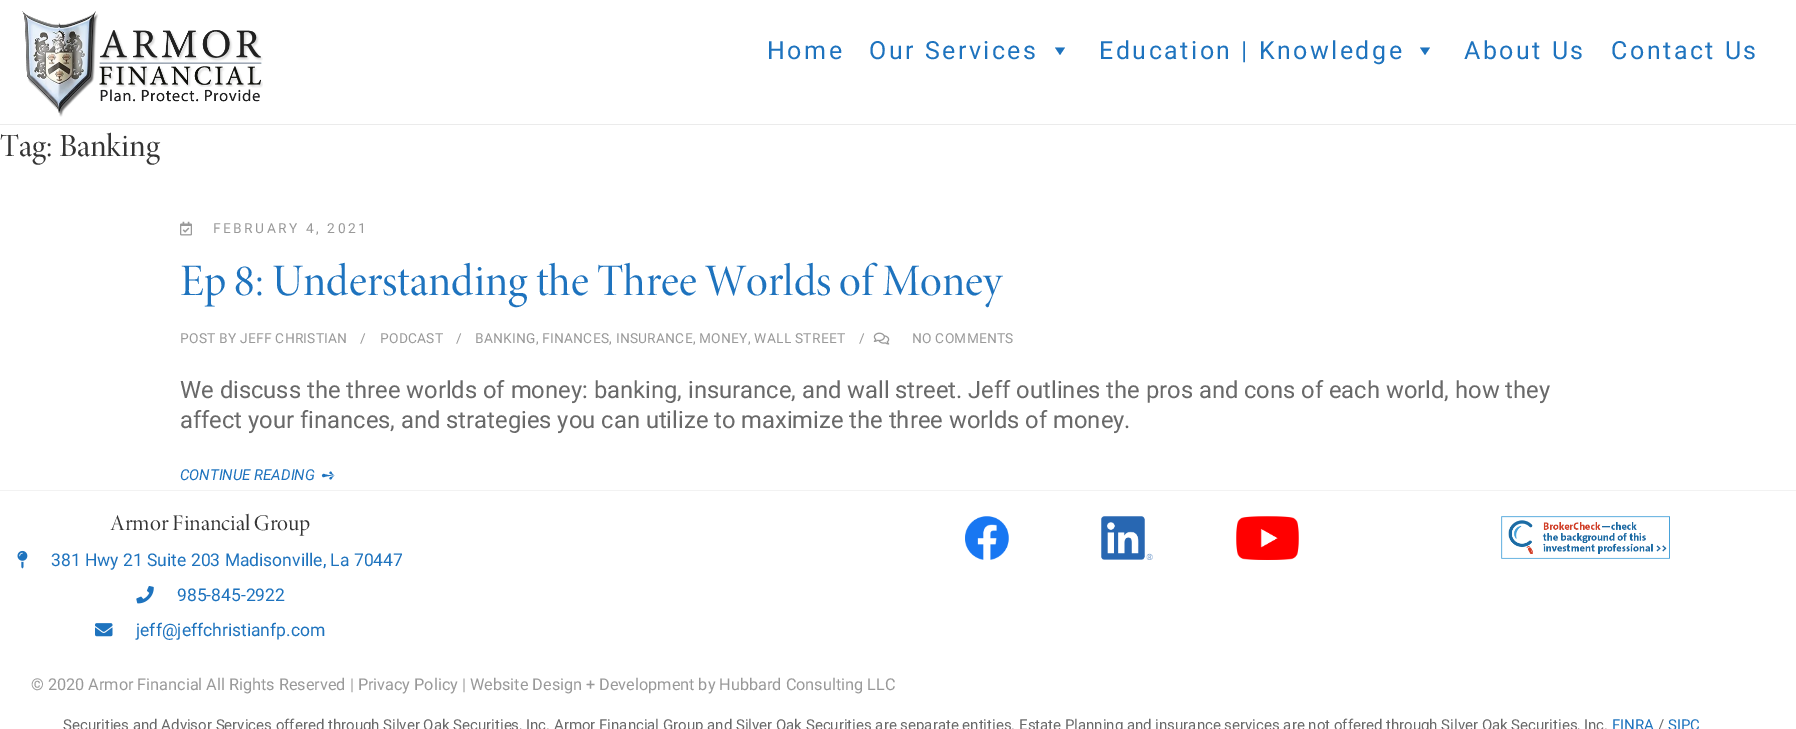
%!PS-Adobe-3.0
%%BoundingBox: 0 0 1796 729
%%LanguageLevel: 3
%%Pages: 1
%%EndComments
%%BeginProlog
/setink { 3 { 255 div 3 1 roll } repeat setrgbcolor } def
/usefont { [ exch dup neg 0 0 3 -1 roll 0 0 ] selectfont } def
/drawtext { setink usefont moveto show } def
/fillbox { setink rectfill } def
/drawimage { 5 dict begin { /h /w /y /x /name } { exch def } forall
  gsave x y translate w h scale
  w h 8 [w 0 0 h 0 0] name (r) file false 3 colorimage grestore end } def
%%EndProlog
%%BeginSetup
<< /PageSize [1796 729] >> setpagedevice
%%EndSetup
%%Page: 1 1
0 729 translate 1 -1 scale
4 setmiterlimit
0 0 1796 729 255 255 255 fillbox
(assets/img1.rgb) 22 11 241 106 drawimage
/Roboto-Regular 25 usefont
30 115 190 setink
767 59 moveto 2.5 0 (Home) ashow
869 59 moveto 2.5 0 (Our Services) ashow
1065 47.5 moveto 1060 55 lineto 1055 47.5 lineto closepath fill
1099 59 moveto 2.5 0 (Education | Knowledge) ashow
1430 47.5 moveto 1425 55 lineto 1420 47.5 lineto closepath fill
1464 59 moveto 2.5 0 (About Us) ashow
1611 59 moveto 2.5 0 (Contact Us) ashow
0 124 1796 1 235 235 235 fillbox
(Tag: Banking) 0 156 /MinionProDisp-Regular 32.5 52 52 52 drawtext
(assets/img2.rgb) 180 221 12 15 drawimage
/Roboto-Regular 13.75 usefont
153 153 153 setink
213 233 moveto 2.5 0 (FEBRUARY 4, 2021) ashow
(Ep 8: Understanding the Three Worlds of Money) 180 295 /MinionProDisp-Regular 45 30 115 190 drawtext
/Roboto-Regular 13.75 usefont
153 153 153 setink
180 343 moveto 0.25 0 (POST BY JEFF CHRISTIAN) ashow
360 343 moveto 0.25 0 (/) ashow
380 343 moveto 0.25 0 (PODCAST) ashow
456 343 moveto 0.25 0 (/) ashow
475 343 moveto 0.25 0 (BANKING, FINANCES, INSURANCE, MONEY, WALL STREET) ashow
859 343 moveto 0.25 0 (/) ashow
(assets/img3.rgb) 873 332 17 13 drawimage
912 343 moveto 0.25 0 (NO COMMENTS) ashow
(We discuss the three worlds of money: banking, insurance, and wall street. Jeff outlines the pros and cons of each world, how they) 180 398 /Roboto-Regular 23.75 105 105 105 drawtext
(affect your finances, and strategies you can utilize to maximize the three worlds of money.) 180 428 /Roboto-Regular 23.75 105 105 105 drawtext
(CONTINUE READING) 180 480 /Roboto-Italic 15 30 115 190 drawtext
(➺) 321 481 /DejaVuSans-Regular 17.5 30 115 190 drawtext
0 490 1796 1 242 242 242 fillbox
(Armor Financial Group) 110 530 /MinionProDisp-Regular 22.5 52 52 52 drawtext
(assets/img4.rgb) 17 550 11 19 drawimage
(381 Hwy 21 Suite 203 Madisonville, La 70447) 51 566 /Roboto-Regular 17.5 30 115 190 drawtext
(assets/img5.rgb) 136 586 18 18 drawimage
(985-845-2922) 177 601 /Roboto-Regular 17.5 30 115 190 drawtext
(assets/img6.rgb) 95 623 18 14 drawimage
(jeff@jeffchristianfp.com) 136 636 /Roboto-Regular 17.5 30 115 190 drawtext
(assets/img7.rgb) 965 516 44 44 drawimage
(assets/img8.rgb) 1101 516 52 44 drawimage
(assets/img9.rgb) 1236 516 63 44 drawimage
(assets/img10.rgb) 1501 516 169 43 drawimage
(© 2020 Armor Financial All Rights Reserved | Privacy Policy | Website Design + Development by Hubbard Consulting LLC) 31 690 /Roboto-Regular 16.25 153 153 153 drawtext
(Securities and Advisor Services offered through Silver Oak Securities, Inc. Armor Financial Group and Silver Oak Securities are separate entities. Estate Planning and insurance services are not offered through Silver Oak Securities, Inc.) 63 730 /Roboto-Regular 15 105 105 105 drawtext
(FINRA) 1612 730 /Roboto-Regular 15 30 115 190 drawtext
(/) 1658 730 /Roboto-Regular 15 105 105 105 drawtext
(SIPC) 1668 730 /Roboto-Regular 15 30 115 190 drawtext
showpage
%%EOF
